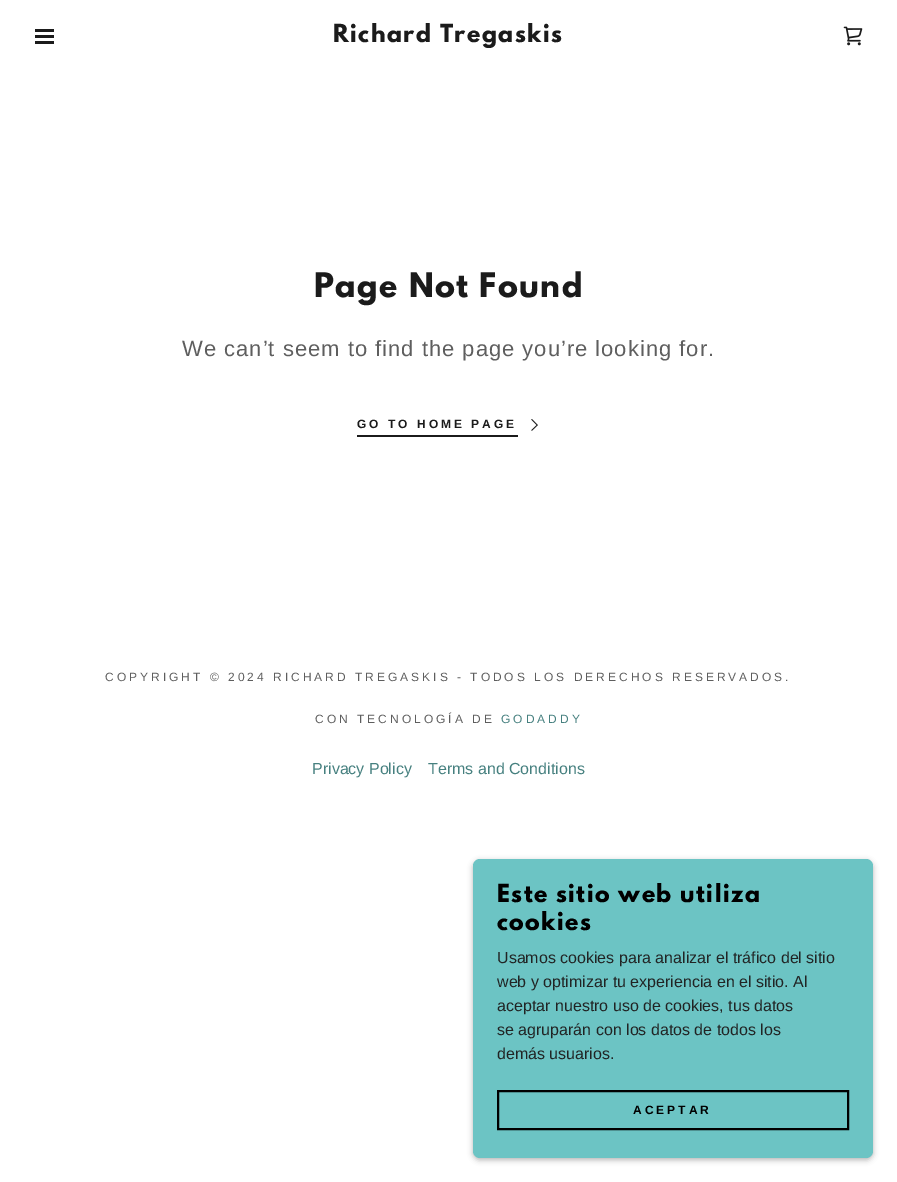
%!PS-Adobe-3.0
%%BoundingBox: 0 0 897 1182
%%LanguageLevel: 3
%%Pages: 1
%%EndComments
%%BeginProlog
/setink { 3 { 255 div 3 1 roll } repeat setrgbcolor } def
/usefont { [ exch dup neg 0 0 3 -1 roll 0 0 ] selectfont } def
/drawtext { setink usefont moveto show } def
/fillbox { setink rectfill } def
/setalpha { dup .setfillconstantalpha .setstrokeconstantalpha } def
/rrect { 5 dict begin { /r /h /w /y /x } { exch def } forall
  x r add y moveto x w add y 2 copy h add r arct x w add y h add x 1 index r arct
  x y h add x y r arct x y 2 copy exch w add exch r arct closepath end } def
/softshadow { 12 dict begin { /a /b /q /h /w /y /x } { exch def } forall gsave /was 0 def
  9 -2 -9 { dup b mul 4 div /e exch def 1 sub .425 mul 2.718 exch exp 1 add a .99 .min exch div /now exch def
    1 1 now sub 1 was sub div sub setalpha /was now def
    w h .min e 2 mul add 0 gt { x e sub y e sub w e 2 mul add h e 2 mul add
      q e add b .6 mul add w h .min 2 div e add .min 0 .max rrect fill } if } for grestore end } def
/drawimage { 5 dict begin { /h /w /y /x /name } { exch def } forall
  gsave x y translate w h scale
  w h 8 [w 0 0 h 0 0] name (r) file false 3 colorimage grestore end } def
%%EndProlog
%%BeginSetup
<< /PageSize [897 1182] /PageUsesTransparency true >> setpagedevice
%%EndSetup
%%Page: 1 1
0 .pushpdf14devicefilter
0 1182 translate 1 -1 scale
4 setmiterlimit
0 0 897 1182 255 255 255 fillbox
35 29 19 3 27 27 27 fillbox
35 35 19 3 27 27 27 fillbox
35 41 19 3 27 27 27 fillbox
/LeagueSpartan-Bold 22 usefont
333 42 moveto 1.5 0 (Richard Tregaskis) ashow
(assets/img1.rgb) 843 26 20 20 drawimage
/LeagueSpartan-Bold 30 usefont
314 297 moveto 1.5 0 (Page Not Found) ashow
/LiberationSans-Regular 22 usefont
94 94 94 setink
182 356 moveto 1 0 (We can’t seem to find the page you’re looking for.) ashow
357 435 161 2 27 27 27 fillbox
/LiberationSans-Bold 12 usefont
357 428 moveto 3 0 (GO TO HOME PAGE) ashow
(assets/img2.rgb) 531 419 7 12 drawimage
/LiberationSans-Regular 12 usefont
94 94 94 setink
105 681 moveto 3 0 (COPYRIGHT © 2024 RICHARD TREGASKIS - TODOS LOS DERECHOS RESERVADOS.) ashow
315 723 moveto 3 0 (CON TECNOLOGÍA DE) ashow
70 128 127 setink
501 723 moveto 3 0 (GODADDY) ashow
(Privacy Policy) 312 774 /LiberationSans-Regular 16 70 128 127 drawtext
(Terms and Conditions) 428 774 /LiberationSans-Regular 16 70 128 127 drawtext
0 0 0 setink
473 861 400 299 7 3 0.3 softshadow
108 196 196 setink
473 859 400 299 7 rrect fill
/LeagueSpartan-Bold 22 usefont
0 0 0 setink
497 902 moveto 1.5 0 (Este sitio web utiliza) ashow
497 930 moveto 1.5 0 (cookies) ashow
(Usamos cookies para analizar el tráfico del sitio) 497 963 /LiberationSans-Regular 16 33 36 36 drawtext
(web y optimizar tu experiencia en el sitio. Al) 497 987 /LiberationSans-Regular 16 33 36 36 drawtext
(aceptar nuestro uso de cookies, tus datos) 497 1011 /LiberationSans-Regular 16 33 36 36 drawtext
(se agruparán con los datos de todos los) 497 1035 /LiberationSans-Regular 16 33 36 36 drawtext
(demás usuarios.) 497 1059 /LiberationSans-Regular 16 33 36 36 drawtext
0 0 0 setink
2 setlinewidth
498 1091 350 38 rectstroke
/LiberationSans-Bold 12 usefont
633 1114 moveto 3 0 (ACEPTAR) ashow
.poppdf14devicefilter showpage
%%EOF
